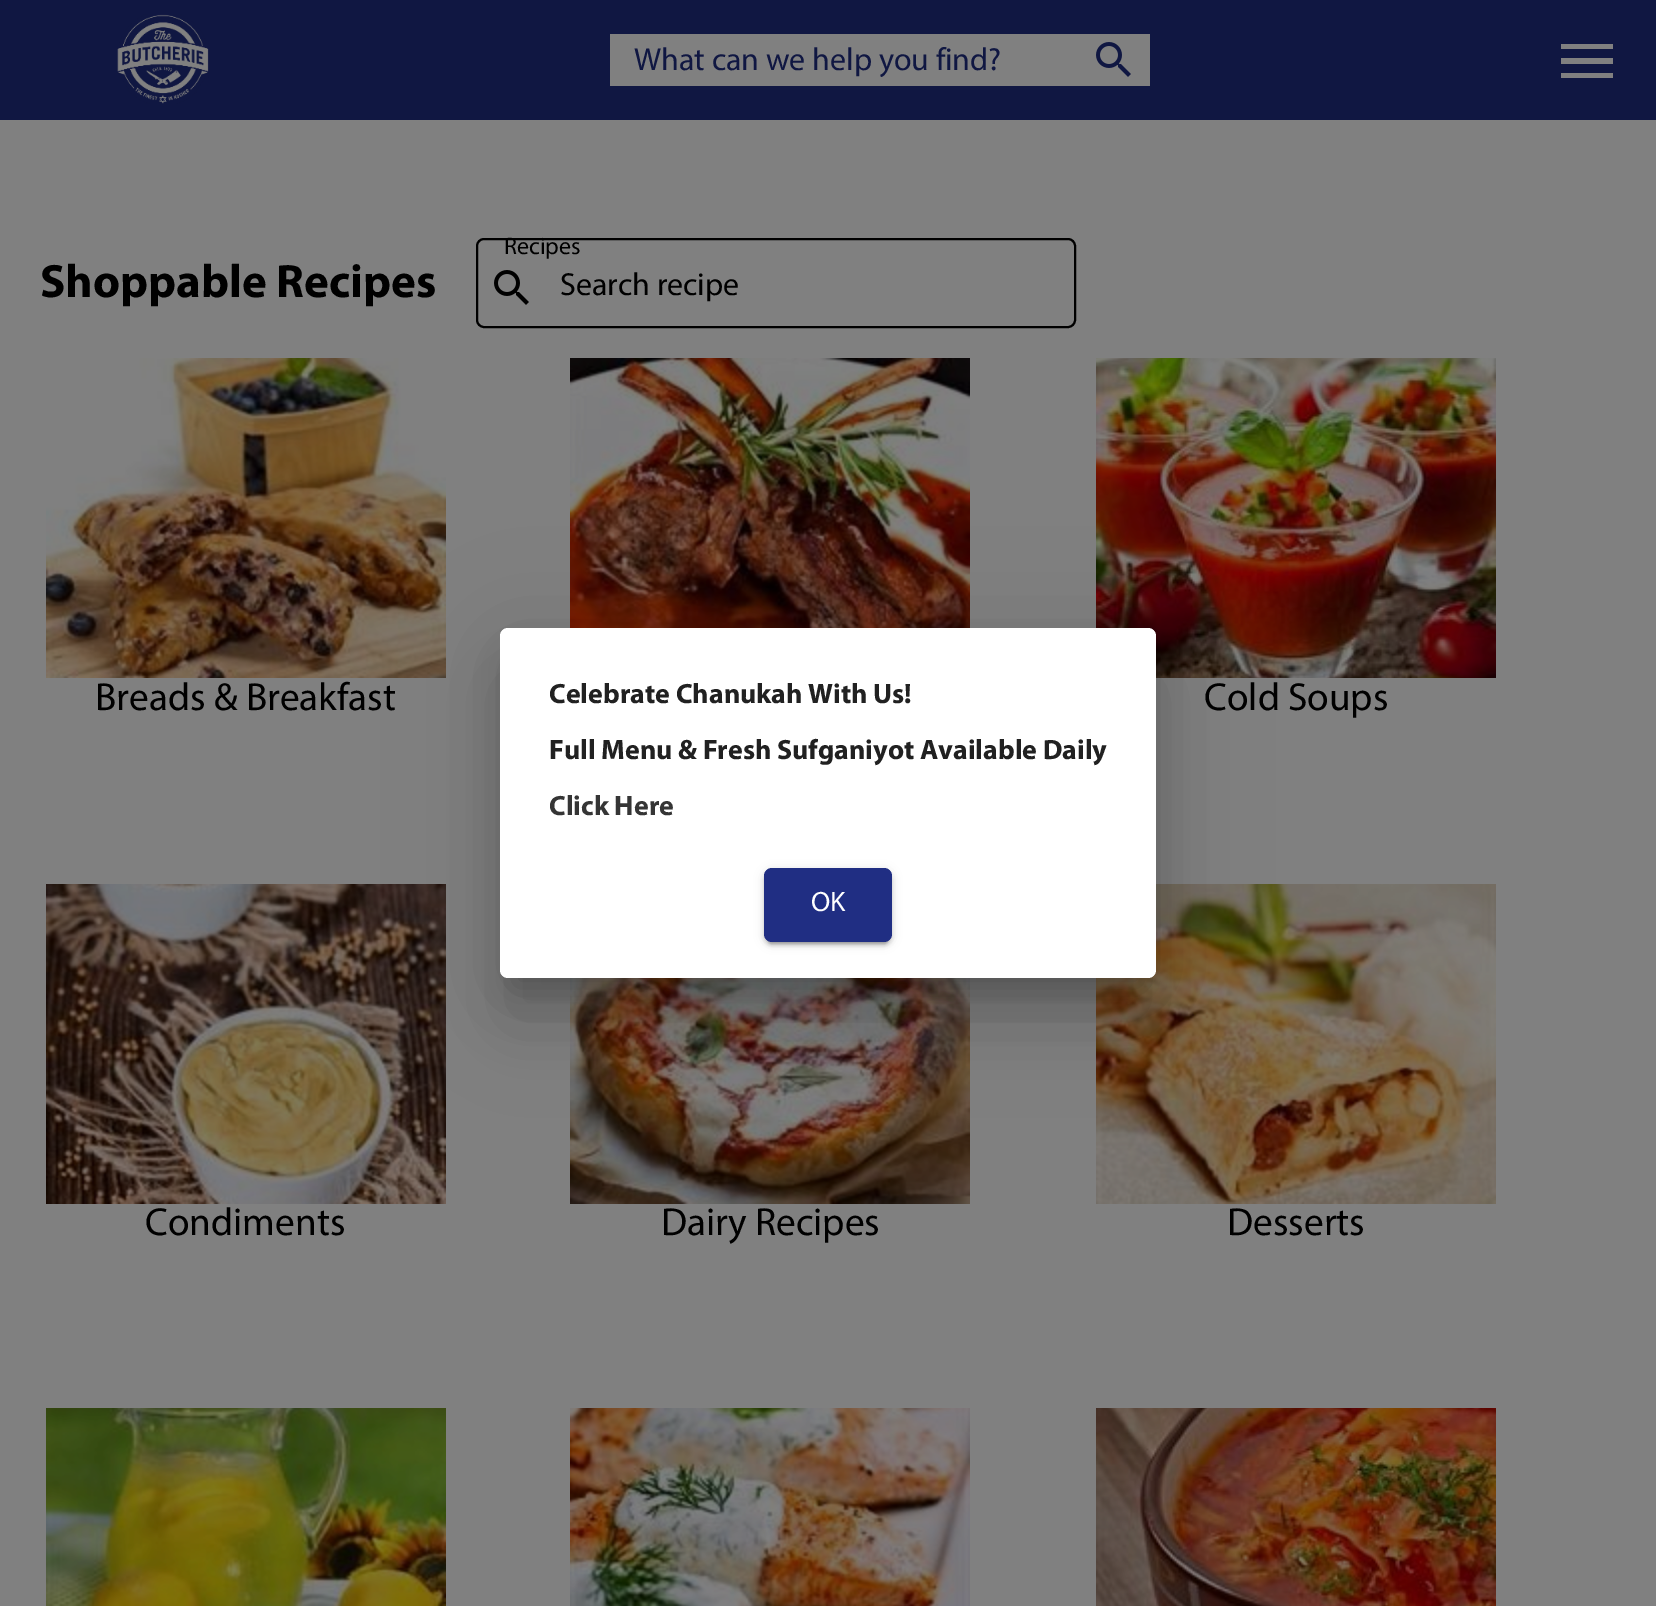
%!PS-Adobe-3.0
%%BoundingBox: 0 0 1656 1606
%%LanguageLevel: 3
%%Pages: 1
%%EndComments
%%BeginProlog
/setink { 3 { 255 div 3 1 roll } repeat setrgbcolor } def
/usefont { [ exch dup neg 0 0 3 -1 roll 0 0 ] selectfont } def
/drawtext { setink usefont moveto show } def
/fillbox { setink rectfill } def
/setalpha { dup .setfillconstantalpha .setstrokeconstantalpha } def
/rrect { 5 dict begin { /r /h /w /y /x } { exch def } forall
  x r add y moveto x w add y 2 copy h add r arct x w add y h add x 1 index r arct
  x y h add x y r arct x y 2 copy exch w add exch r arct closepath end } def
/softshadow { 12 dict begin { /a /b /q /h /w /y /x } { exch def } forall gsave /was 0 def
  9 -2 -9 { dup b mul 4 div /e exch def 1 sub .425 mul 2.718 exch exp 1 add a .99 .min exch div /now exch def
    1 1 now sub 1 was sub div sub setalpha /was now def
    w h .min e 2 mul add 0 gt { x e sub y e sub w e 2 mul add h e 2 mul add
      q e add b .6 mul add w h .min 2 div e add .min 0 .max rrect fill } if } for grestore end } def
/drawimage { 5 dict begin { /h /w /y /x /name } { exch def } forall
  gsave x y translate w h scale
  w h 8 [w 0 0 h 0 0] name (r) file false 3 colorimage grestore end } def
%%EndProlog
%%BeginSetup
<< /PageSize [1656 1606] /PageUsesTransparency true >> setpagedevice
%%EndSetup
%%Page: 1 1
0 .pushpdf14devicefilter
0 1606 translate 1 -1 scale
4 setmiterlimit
0 0 1656 1606 128 128 128 fillbox
0 0 1656 120 16 23 66 fillbox
(assets/img1.rgb) 117 14 92 90 drawimage
610 34 540 52 128 128 128 fillbox
(What can we help you find?) 634 70 /Myriad-Regular 32 16 23 66 drawtext
(assets/img2.rgb) 1096 42 35 35 drawimage
128 128 128 setink
1561 78 moveto 1613 78 lineto 1613 73 lineto 1561 73 lineto closepath 1561 64 moveto 1613 64 lineto 1613 58 lineto 1561 58 lineto closepath 1561 44 moveto 1561 49 lineto 1613 49 lineto 1613 44 lineto closepath fill
(Shoppable Recipes) 40 297 /Myriad-Bold 47 0 0 0 drawtext
(assets/img3.rgb) 494 270 35 35 drawimage
2 setlinewidth
477 239 598 88 7 rrect stroke
(Recipes) 504 254 /Myriad-Regular 24 0 0 0 drawtext
(Search recipe) 560 295 /Myriad-Regular 32 0 0 0 drawtext
(assets/img4.rgb) 570 358 400 270 drawimage
(assets/img5.rgb) 46 358 400 320 drawimage
(Breads & Breakfast) 95 710 /Myriad-Regular 39.25 0 0 0 drawtext
(assets/img6.rgb) 1096 358 400 320 drawimage
(Cold Soups) 1204 710 /Myriad-Regular 39.25 0 0 0 drawtext
(assets/img7.rgb) 46 884 400 320 drawimage
(Condiments) 145 1235 /Myriad-Regular 39.25 0 0 0 drawtext
(assets/img8.rgb) 570 978 400 226 drawimage
(Dairy Recipes) 661 1235 /Myriad-Regular 39.25 0 0 0 drawtext
(assets/img9.rgb) 1096 884 400 320 drawimage
(Desserts) 1227 1235 /Myriad-Regular 39.25 0 0 0 drawtext
(assets/img10.rgb) 46 1408 400 198 drawimage
(assets/img11.rgb) 570 1408 400 198 drawimage
(assets/img12.rgb) 1096 1408 400 198 drawimage
484 630 688 382 24 46 0.12 softshadow
494 670 668 362 14 38 0.14 softshadow
514 664 628 322 0 15 0.2 softshadow
255 255 255 setink
500 628 656 350 8 rrect fill
(Celebrate Chanukah With Us!) 549 703 /Myriad-Bold 28 33 33 33 drawtext
(Full Menu & Fresh Sufganiyot Available Daily) 549 759 /Myriad-Bold 28 33 33 33 drawtext
(Click Here) 549 815 /Myriad-Bold 28 53 53 53 drawtext
0 0 0 setink
764 870 128 74 8 5 0.12 softshadow
764 872 128 74 8 2 0.14 softshadow
768 878 120 66 4 1 0.2 softshadow
32 46 131 setink
764 868 128 74 8 rrect fill
(OK) 811 911 /Myriad-Regular 28 255 255 255 drawtext
.poppdf14devicefilter showpage
%%EOF
